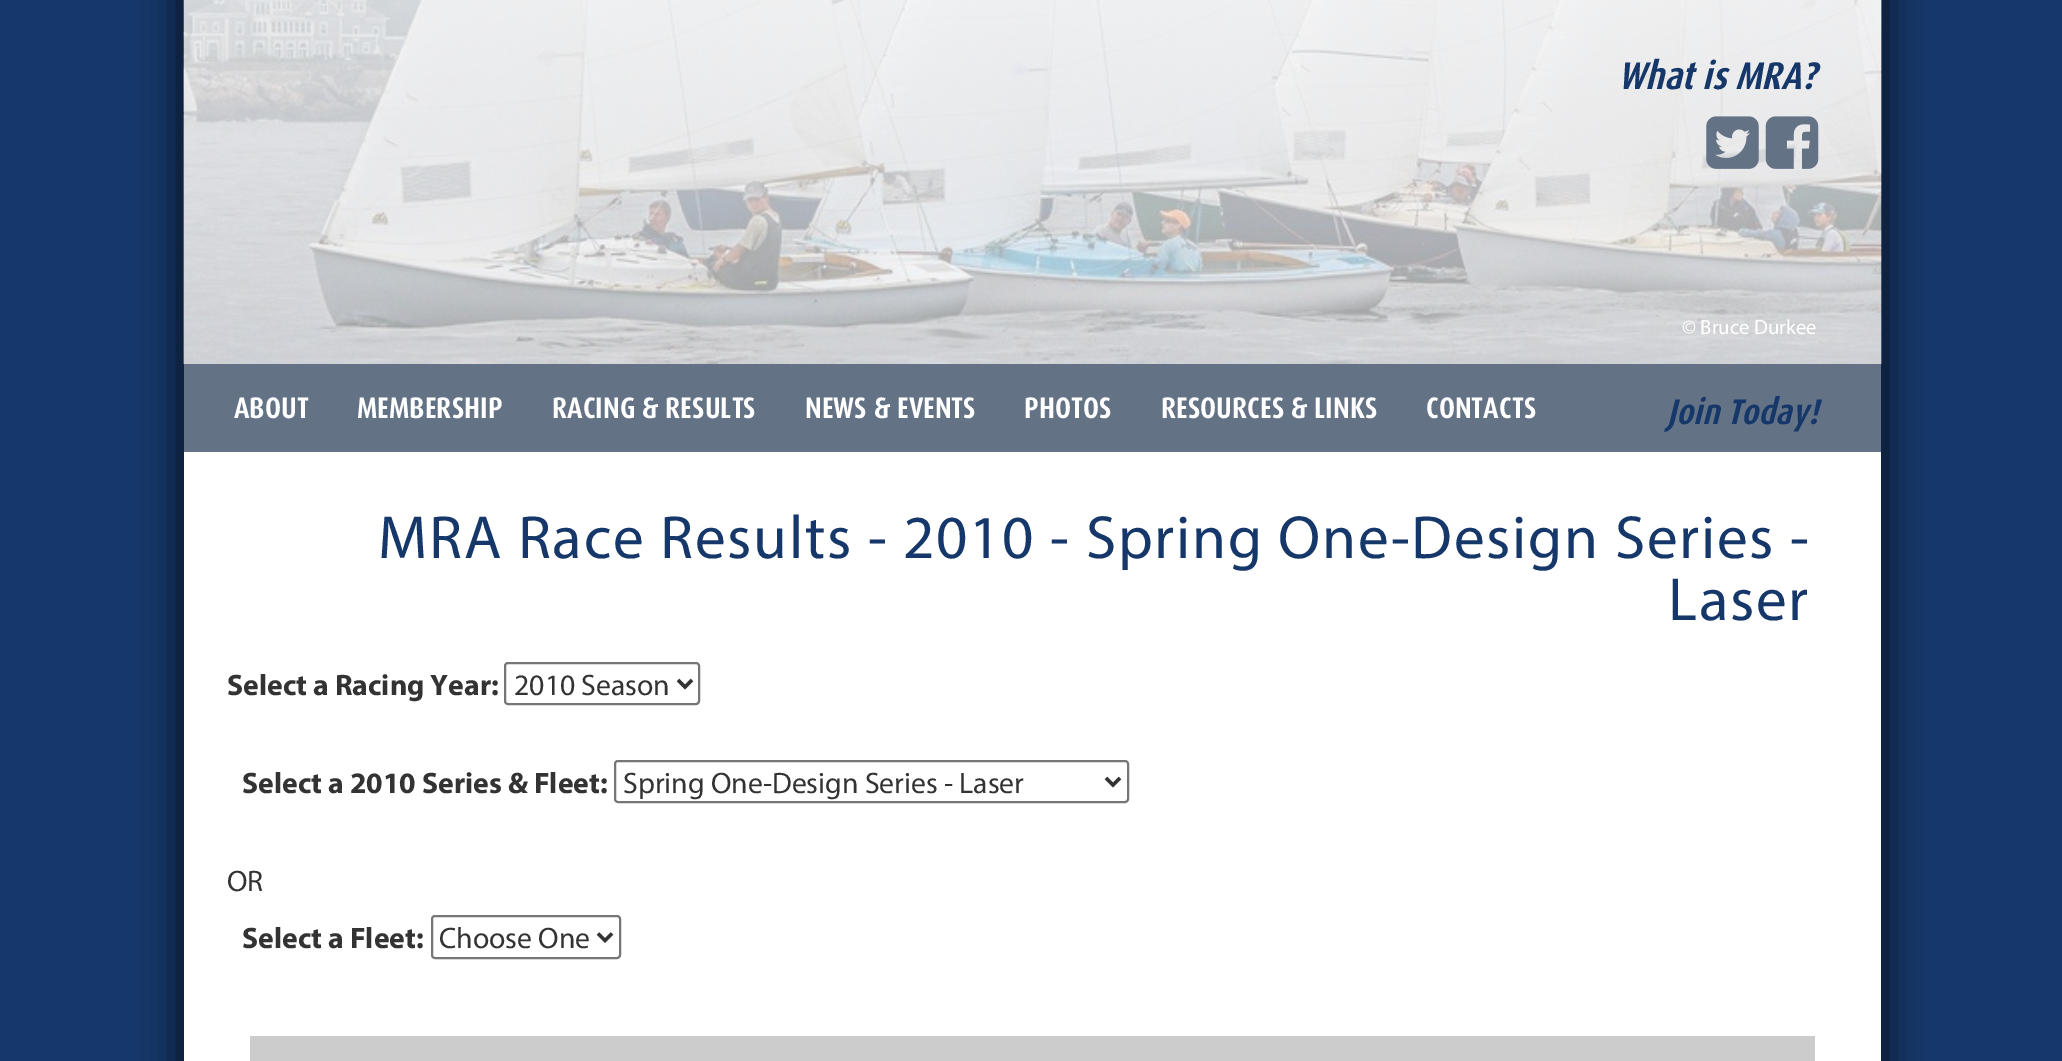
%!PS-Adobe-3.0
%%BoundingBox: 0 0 2062 1061
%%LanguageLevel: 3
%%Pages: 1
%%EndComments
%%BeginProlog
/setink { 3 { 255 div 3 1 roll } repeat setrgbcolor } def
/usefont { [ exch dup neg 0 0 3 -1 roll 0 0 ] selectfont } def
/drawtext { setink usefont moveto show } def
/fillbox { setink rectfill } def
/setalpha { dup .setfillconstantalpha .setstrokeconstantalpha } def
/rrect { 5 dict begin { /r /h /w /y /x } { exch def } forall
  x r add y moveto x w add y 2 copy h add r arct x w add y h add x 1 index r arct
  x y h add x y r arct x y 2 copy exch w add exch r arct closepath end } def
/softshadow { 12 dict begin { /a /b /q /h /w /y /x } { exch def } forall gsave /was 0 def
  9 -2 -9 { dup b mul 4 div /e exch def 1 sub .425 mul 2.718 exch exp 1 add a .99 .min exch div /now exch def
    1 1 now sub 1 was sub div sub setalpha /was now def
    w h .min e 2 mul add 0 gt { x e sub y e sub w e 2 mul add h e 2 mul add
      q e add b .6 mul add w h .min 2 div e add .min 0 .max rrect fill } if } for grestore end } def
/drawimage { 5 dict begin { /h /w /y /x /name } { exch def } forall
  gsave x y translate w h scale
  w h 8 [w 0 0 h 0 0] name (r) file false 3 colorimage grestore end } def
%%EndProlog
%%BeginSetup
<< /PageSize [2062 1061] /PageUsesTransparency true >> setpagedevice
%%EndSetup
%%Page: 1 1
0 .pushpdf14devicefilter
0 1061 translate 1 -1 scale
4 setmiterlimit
0 0 2062 1061 21 55 105 fillbox
0 0 0 setink
180 -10 1705 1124 0 17.5 0.75 softshadow
184 452 1697 609 255 255 255 fillbox
(assets/img1.rgb) 183 0 1699 364 drawimage
(What is MRA?) 1618 89 /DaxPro-BoldItalic 38.5 21 55 105 drawtext
(assets/img2.rgb) 1706 116 53 53 drawimage
(assets/img3.rgb) 1765 116 54 53 drawimage
(© Bruce Durkee) 1682 334 /Myriad-Regular 20.75 255 255 255 drawtext
184 364 1697 88 100 114 134 fillbox
(ABOUT) 234 418 /DaxPro-Bold 29.75 255 255 255 drawtext
(MEMBERSHIP) 357 418 /DaxPro-Bold 29.75 255 255 255 drawtext
(RACING & RESULTS) 552 418 /DaxPro-Bold 29.75 255 255 255 drawtext
(NEWS & EVENTS) 805 418 /DaxPro-Bold 29.75 255 255 255 drawtext
(PHOTOS) 1024 418 /DaxPro-Bold 29.75 255 255 255 drawtext
(RESOURCES & LINKS) 1161 418 /DaxPro-Bold 29.75 255 255 255 drawtext
(CONTACTS) 1426 418 /DaxPro-Bold 29.75 255 255 255 drawtext
(Join Today!) 1667 424 /DaxPro-BoldItalic 35.5 21 55 105 drawtext
/Myriad-Regular 61.25 usefont
378 558 moveto 1.75 0 (MRA Race Results - 2010 - Spring One-Design Series -) ashow
1668 620 moveto 1.75 0 (Laser) ashow
(Select a Racing Year:) 227 695 /Myriad-Bold 29.75 51 51 51 drawtext
118 118 118 setink
2 setlinewidth
505 663 194 41 3 rrect stroke
51 51 51 setink
3.5 setlinewidth
678 680 moveto 685 687 lineto 692 680 lineto stroke
(2010 Season) 514 695 /Myriad-Regular 29.75 51 51 51 drawtext
(Select a 2010 Series & Fleet:) 242 793 /Myriad-Bold 29.75 51 51 51 drawtext
118 118 118 setink
2 setlinewidth
615 761 513 41 3 rrect stroke
51 51 51 setink
3.5 setlinewidth
1106 778 moveto 1113 785 lineto 1120 778 lineto stroke
(Spring One-Design Series - Laser) 623 793 /Myriad-Regular 29.75 51 51 51 drawtext
(OR) 227 891 /Myriad-Regular 29.75 51 51 51 drawtext
(Select a Fleet:) 242 948 /Myriad-Bold 29.75 51 51 51 drawtext
118 118 118 setink
2 setlinewidth
432 916 188 42 3 rrect stroke
51 51 51 setink
3.5 setlinewidth
598 933.5 moveto 605 940.5 lineto 612 933.5 lineto stroke
(Choose One) 439 948 /Myriad-Regular 29.75 51 51 51 drawtext
250 1036 1565 25 204 204 204 fillbox
.poppdf14devicefilter showpage
%%EOF
